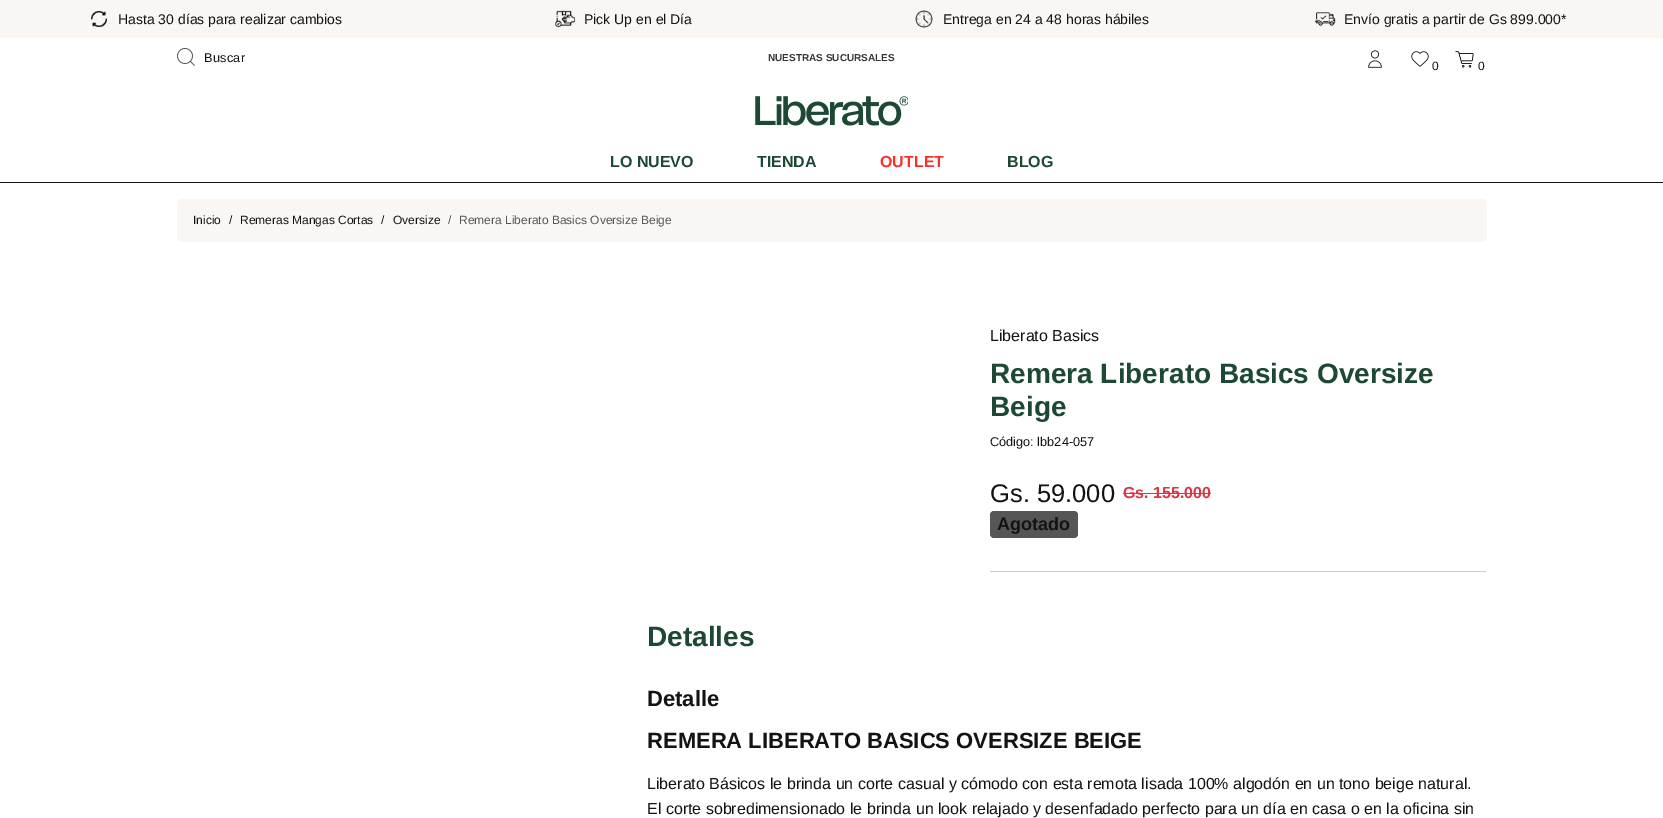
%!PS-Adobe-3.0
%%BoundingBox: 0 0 1663 818
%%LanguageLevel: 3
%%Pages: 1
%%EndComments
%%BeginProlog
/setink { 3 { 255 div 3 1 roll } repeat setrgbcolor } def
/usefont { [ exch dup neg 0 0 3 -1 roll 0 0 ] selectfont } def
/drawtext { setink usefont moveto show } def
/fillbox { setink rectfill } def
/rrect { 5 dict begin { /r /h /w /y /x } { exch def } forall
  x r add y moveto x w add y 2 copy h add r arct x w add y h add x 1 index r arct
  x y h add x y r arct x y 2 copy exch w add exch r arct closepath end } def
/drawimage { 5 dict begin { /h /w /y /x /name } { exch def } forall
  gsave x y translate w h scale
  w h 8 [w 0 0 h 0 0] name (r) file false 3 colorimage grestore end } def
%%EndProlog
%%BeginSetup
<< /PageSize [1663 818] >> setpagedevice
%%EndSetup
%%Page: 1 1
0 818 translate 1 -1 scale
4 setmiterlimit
0 0 1663 818 255 255 255 fillbox
0 182 1663 1 19 19 19 fillbox
0 0 1663 38 249 246 243 fillbox
(assets/img1.rgb) 91 11 16 16 drawimage
(Hasta 30 días para realizar cambios) 118 24 /LiberationSans-Regular 14 19 19 19 drawtext
(assets/img2.rgb) 555 10 21 18 drawimage
(Pick Up en el Día) 584 24 /LiberationSans-Regular 14 19 19 19 drawtext
(assets/img3.rgb) 915 10 18 18 drawimage
(Entrega en 24 a 48 horas hábiles) 943 24 /LiberationSans-Regular 14 19 19 19 drawtext
(assets/img4.rgb) 1314 12 22 14 drawimage
(Envío gratis a partir de Gs 899.000*) 1344 24 /LiberationSans-Regular 14 19 19 19 drawtext
(assets/img5.rgb) 177 48 18 18 drawimage
/LiberationSans-Regular 12.75 usefont
204 62 moveto 0.25 0 (Buscar) ashow
(NUESTRAS SUCURSALES) 768 61 /LiberationSans-Bold 10 54 54 54 drawtext
(assets/img6.rgb) 1368 50 14 18 drawimage
(assets/img7.rgb) 1411 51 18 16 drawimage
(0) 1432 70 /LiberationSans-Regular 12 19 19 19 drawtext
(assets/img8.rgb) 1455 51 19 17 drawimage
(0) 1478 70 /LiberationSans-Regular 12 19 19 19 drawtext
(assets/img9.rgb) 755 96 153 30 drawimage
(LO NUEVO) 610 167 /LiberationSans-Bold 16 28 72 52 drawtext
(TIENDA) 757 167 /LiberationSans-Bold 16 28 72 52 drawtext
(OUTLET) 880 167 /LiberationSans-Bold 16 255 44 44 drawtext
(BLOG) 1007 167 /LiberationSans-Bold 16 28 72 52 drawtext
249 246 243 setink
177 199 1310 43 4 rrect fill
(Inicio) 193 224 /LiberationSans-Regular 12 19 19 19 drawtext
(/) 229 224 /LiberationSans-Regular 12 19 19 19 drawtext
(Remeras Mangas Cortas) 240 224 /LiberationSans-Regular 12 19 19 19 drawtext
(/) 381 224 /LiberationSans-Regular 12 19 19 19 drawtext
(Oversize) 393 224 /LiberationSans-Regular 12 19 19 19 drawtext
(/) 448 224 /LiberationSans-Regular 12 86 86 86 drawtext
(Remera Liberato Basics Oversize Beige) 459 224 /LiberationSans-Regular 12 86 86 86 drawtext
990 571 496 1 204 204 204 fillbox
(Liberato Basics) 990 341 /LiberationSans-Regular 16 19 19 19 drawtext
(Remera Liberato Basics Oversize) 990 383 /LiberationSans-Bold 28 28 72 52 drawtext
(Beige) 990 416 /LiberationSans-Bold 28 28 72 52 drawtext
(Código: lbb24-057) 990 446 /LiberationSans-Regular 12.75 19 19 19 drawtext
(Gs. 59.000) 990 502 /LiberationSans-Regular 25.5 19 19 19 drawtext
(Gs. 155.000) 1123 498 /LiberationSans-Bold 16 220 53 69 drawtext
1123 493 88 1 220 53 69 fillbox
86 86 86 setink
990 511 88 27 4 rrect fill
(Agotado) 997 530 /LiberationSans-Bold 18 19 19 19 drawtext
(Detalles) 647 646 /LiberationSans-Bold 28 28 72 52 drawtext
(Detalle) 647 706 /LiberationSans-Bold 22 19 19 19 drawtext
(REMERA LIBERATO BASICS OVERSIZE BEIGE) 647 748 /LiberationSans-Bold 22 19 19 19 drawtext
(Liberato Básicos le brinda un corte casual y cómodo con esta remota lisada 100% algodón en un tono beige natural.) 647 789 /LiberationSans-Regular 16 19 19 19 drawtext
(El corte sobredimensionado le brinda un look relajado y desenfadado perfecto para un día en casa o en la oficina sin) 647 814 /LiberationSans-Regular 16 19 19 19 drawtext
showpage
%%EOF
